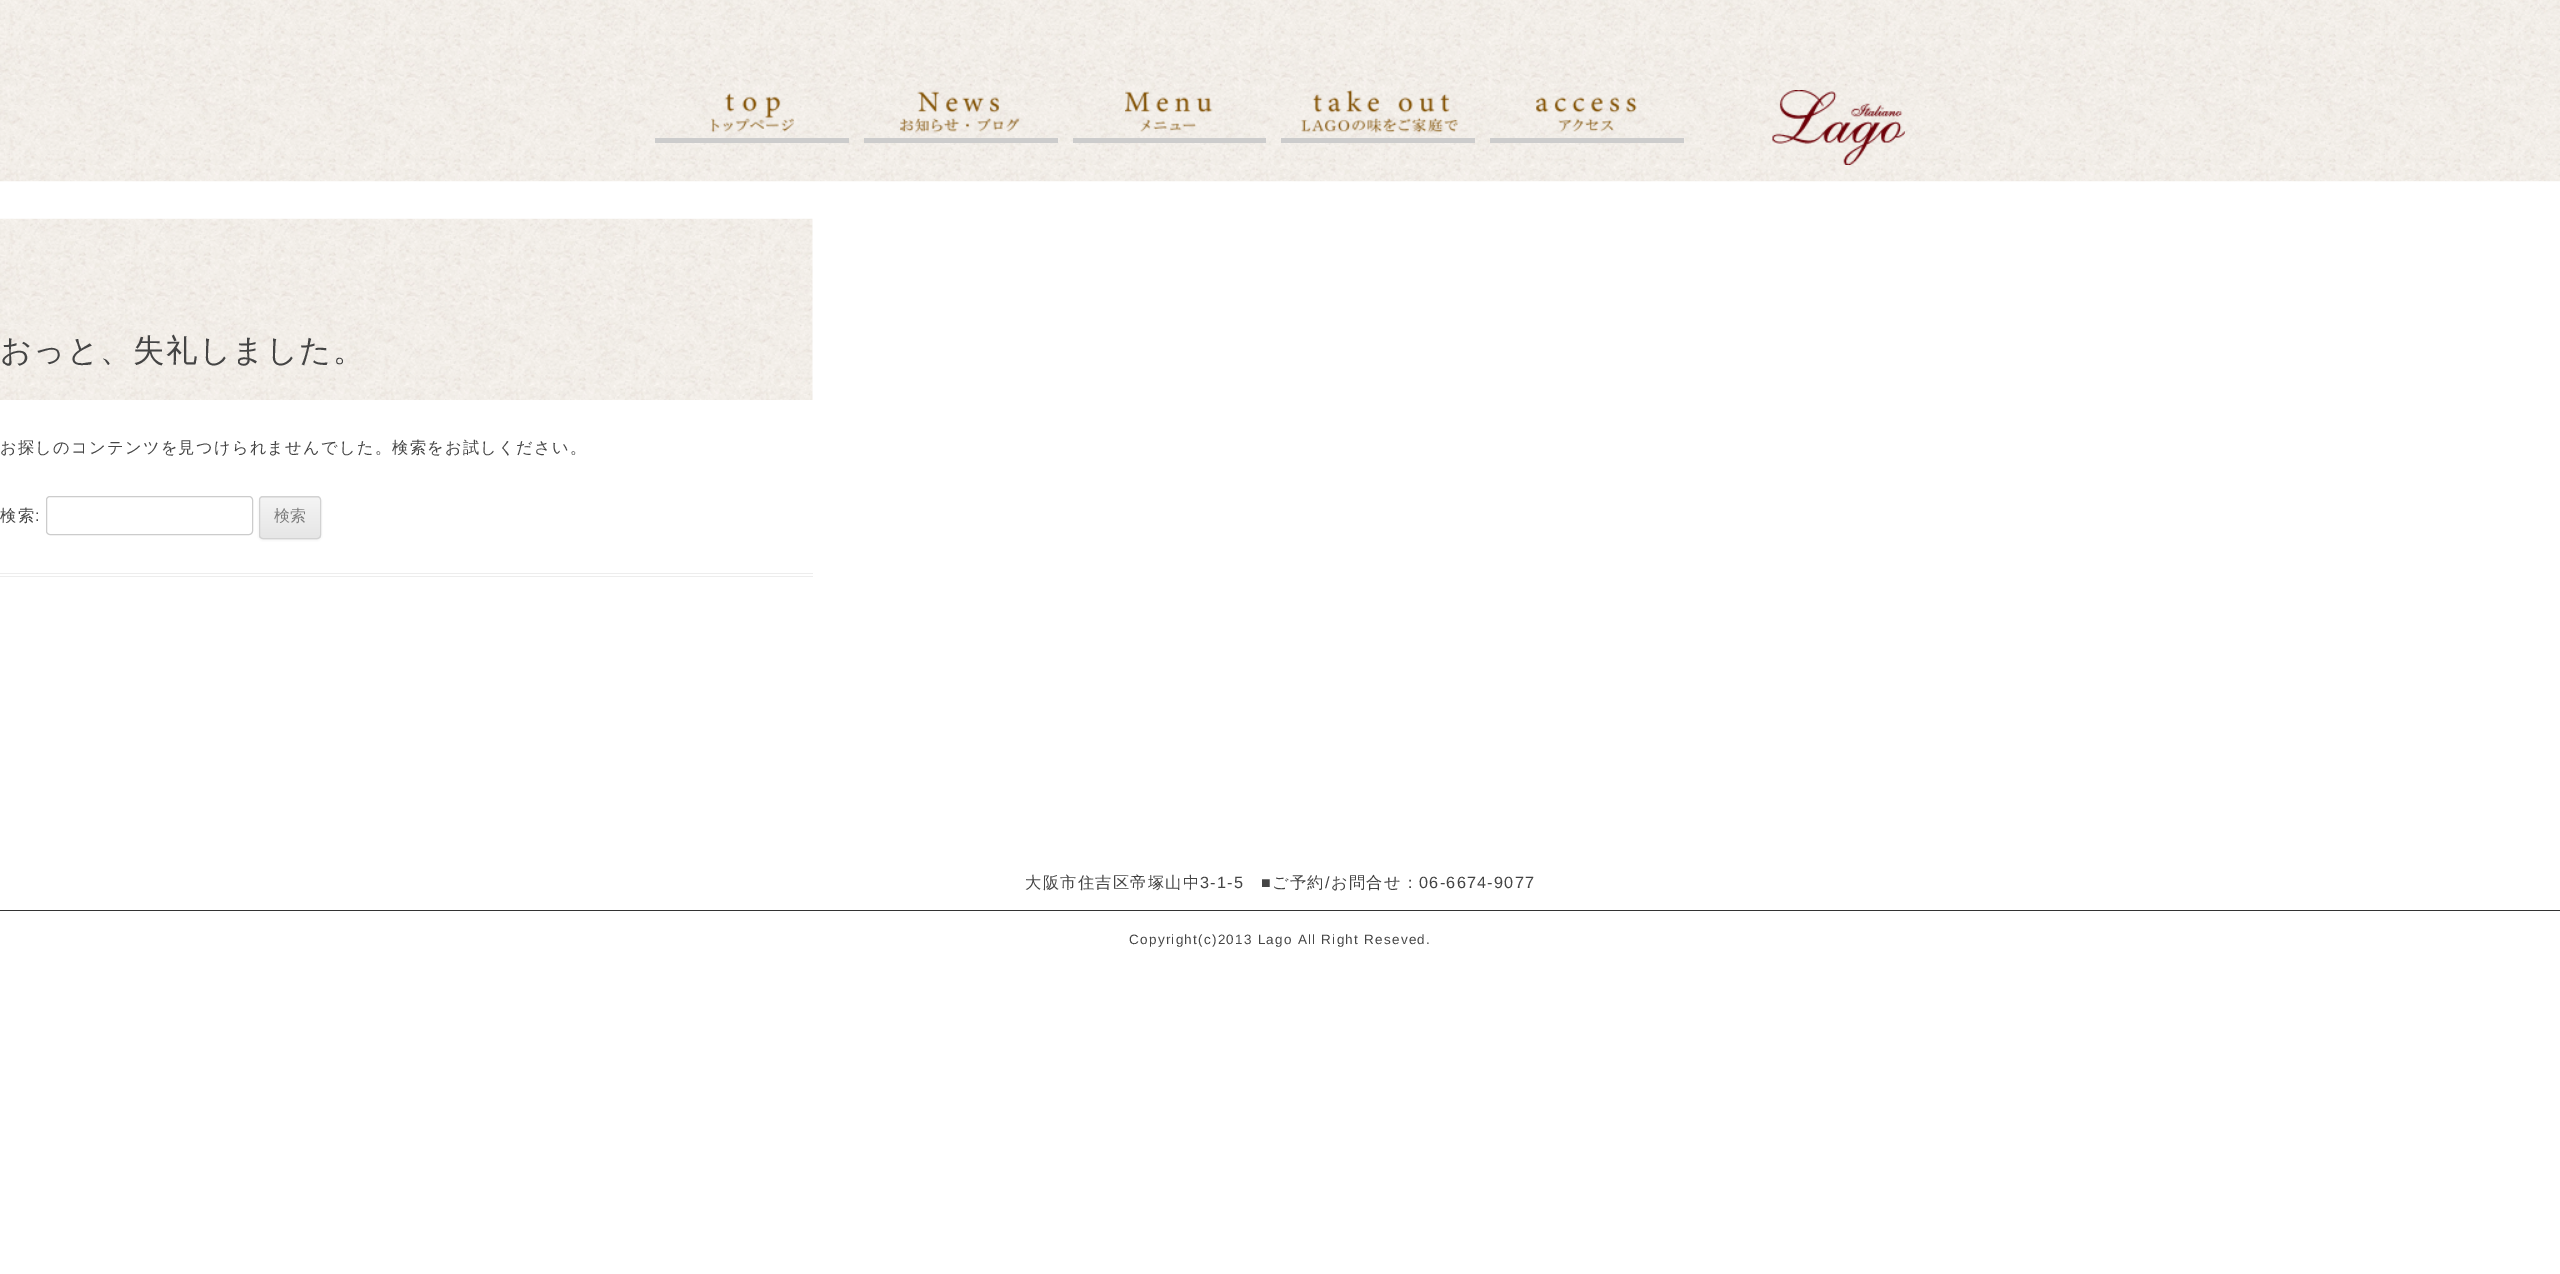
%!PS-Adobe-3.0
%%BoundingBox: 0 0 2560 1274
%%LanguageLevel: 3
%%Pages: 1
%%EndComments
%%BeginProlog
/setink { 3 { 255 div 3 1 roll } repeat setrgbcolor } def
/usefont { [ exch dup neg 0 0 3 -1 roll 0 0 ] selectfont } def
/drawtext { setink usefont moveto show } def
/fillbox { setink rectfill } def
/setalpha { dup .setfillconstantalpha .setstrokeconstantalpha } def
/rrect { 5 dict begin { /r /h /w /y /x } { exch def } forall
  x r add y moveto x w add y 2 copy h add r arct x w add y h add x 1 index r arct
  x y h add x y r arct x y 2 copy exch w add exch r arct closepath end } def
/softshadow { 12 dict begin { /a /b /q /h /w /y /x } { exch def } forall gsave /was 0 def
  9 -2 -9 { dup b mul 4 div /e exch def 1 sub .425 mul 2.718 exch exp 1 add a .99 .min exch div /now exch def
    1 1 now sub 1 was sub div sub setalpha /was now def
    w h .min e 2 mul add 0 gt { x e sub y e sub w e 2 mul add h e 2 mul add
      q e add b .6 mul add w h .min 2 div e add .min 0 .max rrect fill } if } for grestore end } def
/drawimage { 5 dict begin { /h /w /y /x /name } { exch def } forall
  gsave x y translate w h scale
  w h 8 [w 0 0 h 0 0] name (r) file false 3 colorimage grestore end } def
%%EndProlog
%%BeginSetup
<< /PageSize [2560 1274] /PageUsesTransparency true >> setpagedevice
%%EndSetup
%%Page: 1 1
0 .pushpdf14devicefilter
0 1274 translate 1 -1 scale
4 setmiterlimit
0 0 2560 1274 255 255 255 fillbox
(assets/img1.rgb) 0 0 2560 182 drawimage
(assets/img2.rgb) 711 93 83 40 drawimage
655 138 194 5 204 204 204 fillbox
(assets/img3.rgb) 900 91 120 42 drawimage
864 138 194 5 204 204 204 fillbox
(assets/img4.rgb) 1125 91 88 41 drawimage
1073 138 193 5 204 204 204 fillbox
(assets/img5.rgb) 1301 90 157 43 drawimage
1281 138 194 5 204 204 204 fillbox
(assets/img6.rgb) 1536 97 101 35 drawimage
1490 138 194 5 204 204 204 fillbox
(assets/img7.rgb) 1772 90 133 75 drawimage
0 573 813 1 237 237 237 fillbox
0 576 813 1 237 237 237 fillbox
(assets/img8.rgb) 0 218 813 182 drawimage
/WenQuanYiZenHei-Medium 31.5 usefont
68 68 68 setink
0 361 moveto 1.25 0 (おっと、失礼しました。) ashow
/WenQuanYiZenHei-Medium 16.25 usefont
0 453 moveto 1.25 0 (お探しのコンテンツを見つけられませんでした。検索をお試しください。) ashow
0 521 moveto 1.25 0 (検索) ashow
/LiberationSans-Regular 16.25 usefont
35 521 moveto 1.25 0 (:) ashow
204 204 204 setink
46.5 496.5 206 38 3.5 rrect stroke
64 64 64 setink
259 498 62 42 4 1 0.1 softshadow
230 230 230 setink
259 496 62 43 4 rrect fill
gsave
259 496 62 43 4 rrect clip newpath
gsave 259 498 moveto 321 498 lineto 321 538 lineto 259 538 lineto closepath clip newpath
<< /ShadingType 2 /ColorSpace /DeviceRGB /Coords [290 498 290 538] /Extend [true true] /Function << /FunctionType 2 /Domain [0 1] /C0 [0.957 0.957 0.957] /C1 [0.902 0.902 0.902] /N 1 >> >> shfill grestore
grestore
210 210 210 setink
259.5 496.5 61 42 3.5 rrect stroke
(検索) 274 521 /WenQuanYiZenHei-Medium 16 124 124 124 drawtext
0 910 2560 1 51 51 51 fillbox
/WenQuanYiZenHei-Medium 16.25 usefont
68 68 68 setink
1025 888 moveto 1.25 0 (大阪市住吉区帝塚山中) ashow
/LiberationSans-Regular 16.25 usefont
1200 888 moveto 1.25 0 (3-1-5) ashow
1261 888 moveto 1.25 0 (■) ashow
/WenQuanYiZenHei-Medium 16.25 usefont
1272 888 moveto 1.25 0 (ご予約) ashow
/LiberationSans-Regular 16.25 usefont
1325 888 moveto 1.25 0 (/) ashow
/WenQuanYiZenHei-Medium 16.25 usefont
1331 888 moveto 1.25 0 (お問合せ：) ashow
/LiberationSans-Regular 16.25 usefont
1419 888 moveto 1.25 0 (06-6674-9077) ashow
/LiberationSans-Regular 13.5 usefont
1129 944 moveto 1.25 0 (Copyright\(c\)2013 Lago All Right Reseved.) ashow
.poppdf14devicefilter showpage
%%EOF
